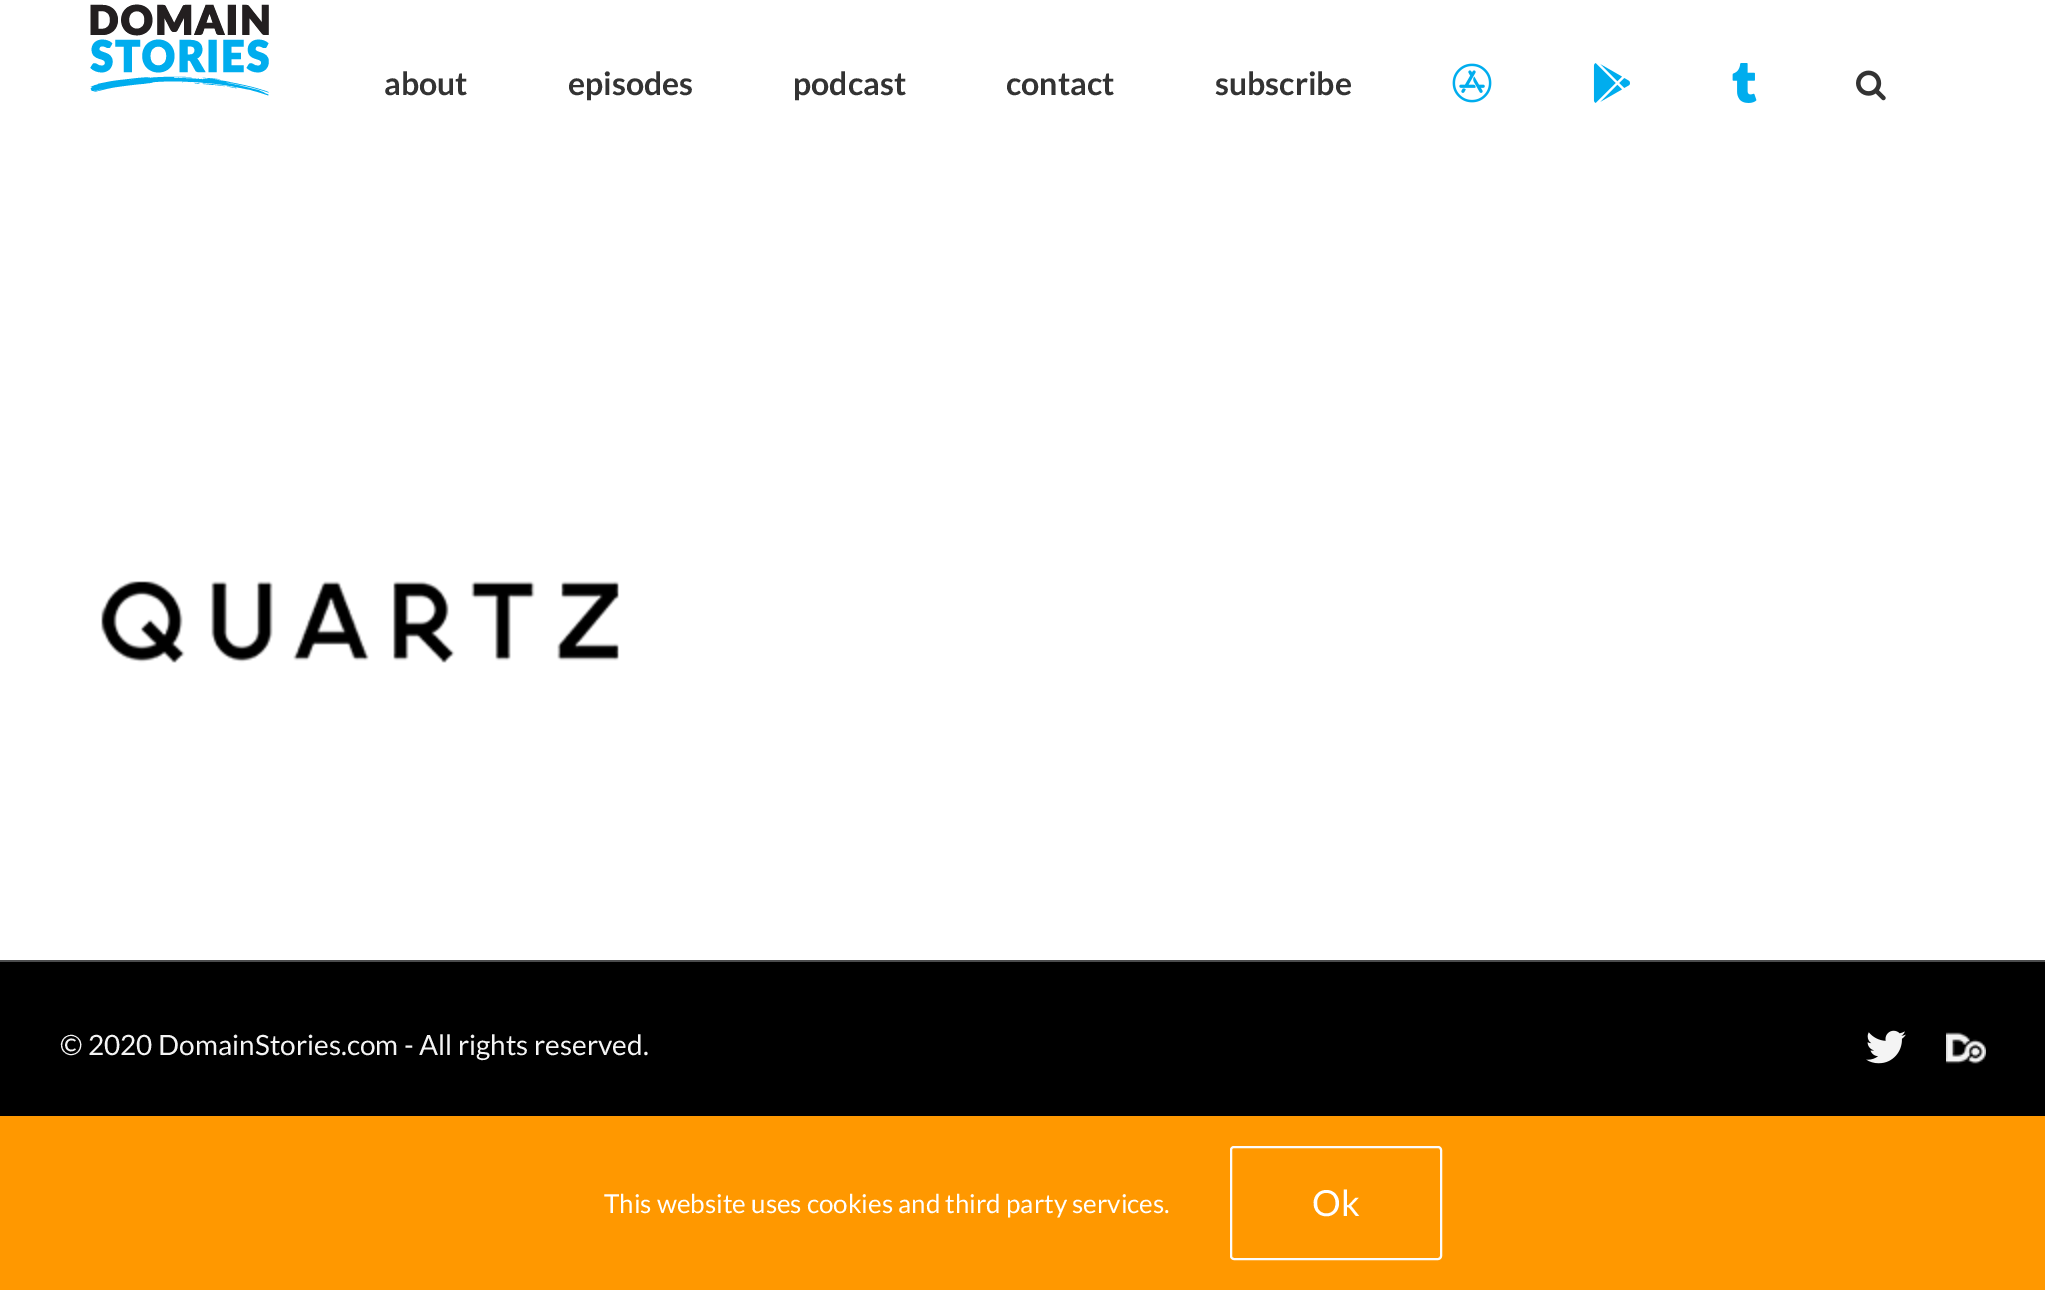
%!PS-Adobe-3.0
%%BoundingBox: 0 0 2045 1290
%%LanguageLevel: 3
%%Pages: 1
%%EndComments
%%BeginProlog
/setink { 3 { 255 div 3 1 roll } repeat setrgbcolor } def
/usefont { [ exch dup neg 0 0 3 -1 roll 0 0 ] selectfont } def
/drawtext { setink usefont moveto show } def
/fillbox { setink rectfill } def
/rrect { 5 dict begin { /r /h /w /y /x } { exch def } forall
  x r add y moveto x w add y 2 copy h add r arct x w add y h add x 1 index r arct
  x y h add x y r arct x y 2 copy exch w add exch r arct closepath end } def
/drawimage { 5 dict begin { /h /w /y /x /name } { exch def } forall
  gsave x y translate w h scale
  w h 8 [w 0 0 h 0 0] name (r) file false 3 colorimage grestore end } def
%%EndProlog
%%BeginSetup
<< /PageSize [2045 1290] >> setpagedevice
%%EndSetup
%%Page: 1 1
0 1290 translate 1 -1 scale
4 setmiterlimit
0 0 2045 1290 255 255 255 fillbox
(assets/img1.rgb) 90 4 179 92 drawimage
(about) 384 95 /Lato-Bold 32 51 51 51 drawtext
(episodes) 568 95 /Lato-Bold 32 51 51 51 drawtext
(podcast) 793 95 /Lato-Bold 32 51 51 51 drawtext
(contact) 1006 95 /Lato-Bold 32 51 51 51 drawtext
(subscribe) 1215 95 /Lato-Bold 32 51 51 51 drawtext
(assets/img2.rgb) 1452 63 40 40 drawimage
(assets/img3.rgb) 1593 63 37 40 drawimage
(assets/img4.rgb) 1732 63 25 40 drawimage
(assets/img5.rgb) 1856 70 30 31 drawimage
(assets/img6.rgb) 101 581 518 82 drawimage
0 962 2045 154 0 0 0 fillbox
0 960 2045 2 75 76 77 fillbox
(© 2020 DomainStories.com - All rights reserved.) 60 1055 /Lato-Regular 28 244 244 244 drawtext
(assets/img7.rgb) 1866 1030 40 34 drawimage
(assets/img8.rgb) 1946 1032 40 32 drawimage
0 1116 2045 174 255 152 0 fillbox
(This website uses cookies and third party services.) 604 1213 /Lato-Regular 26 255 255 255 drawtext
252 252 252 setink
2 setlinewidth
1231 1147 210 112 3 rrect stroke
(Ok) 1312 1216 /Lato-Regular 36 255 255 255 drawtext
showpage
%%EOF
